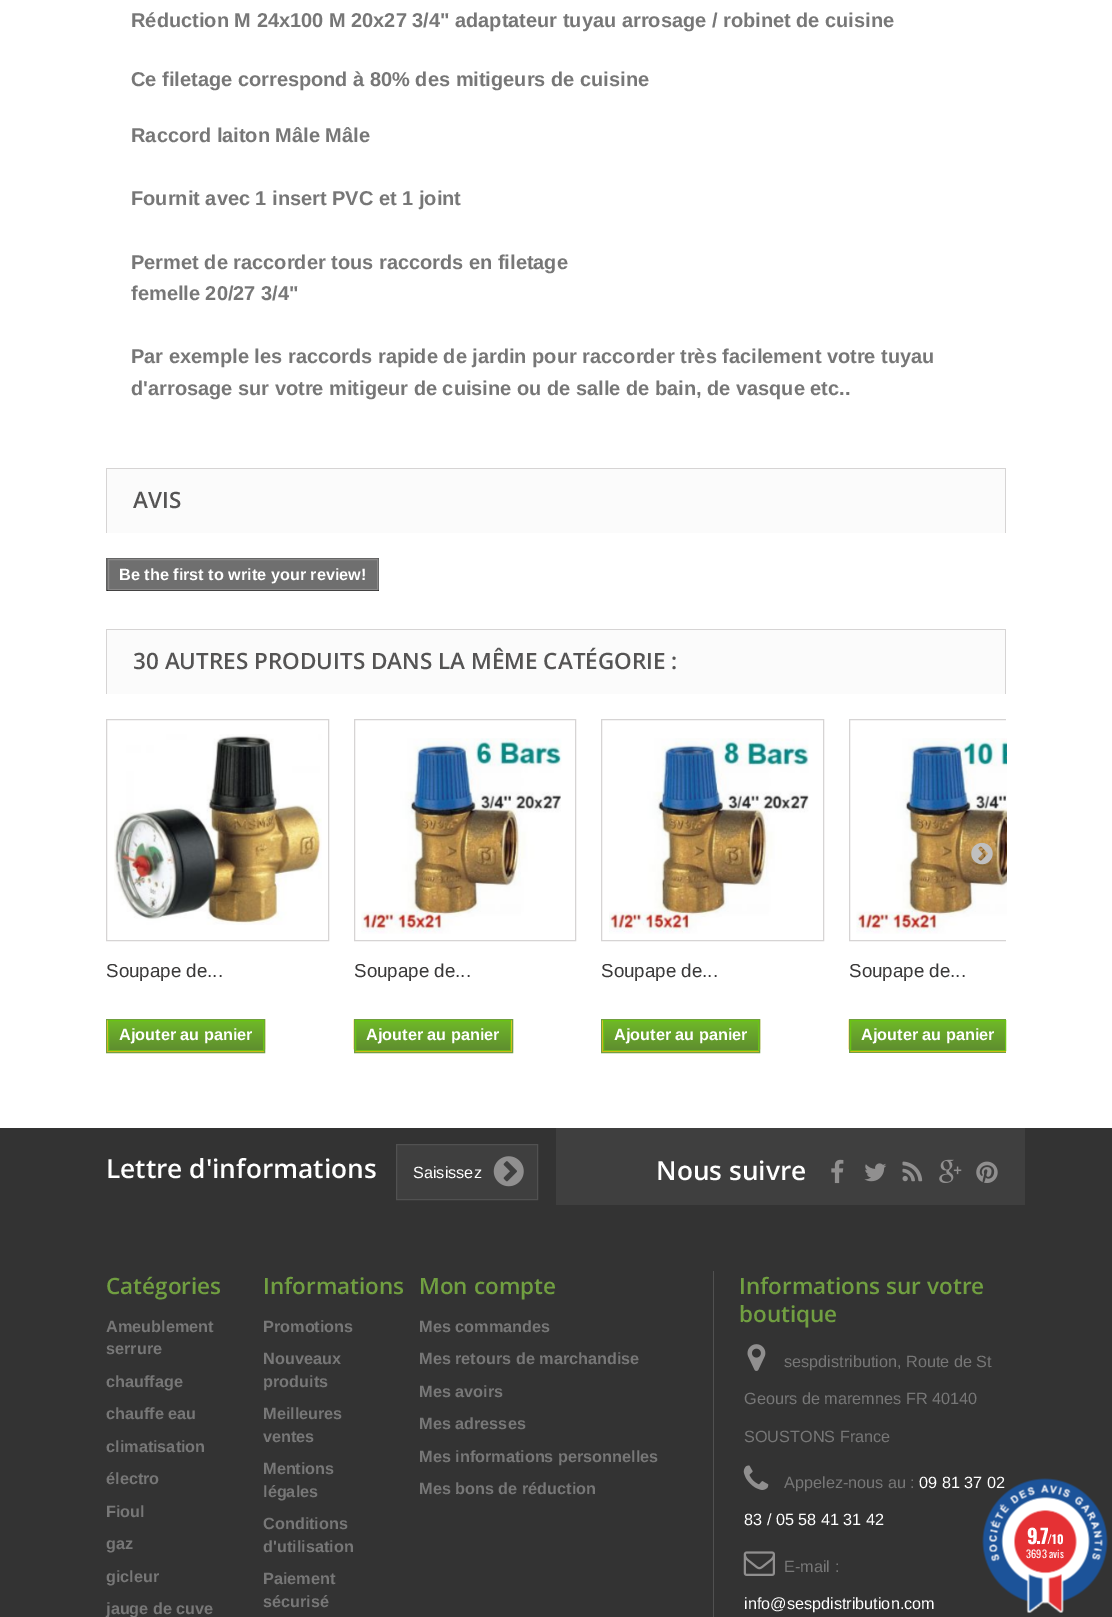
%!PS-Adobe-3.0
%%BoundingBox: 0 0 1112 1617
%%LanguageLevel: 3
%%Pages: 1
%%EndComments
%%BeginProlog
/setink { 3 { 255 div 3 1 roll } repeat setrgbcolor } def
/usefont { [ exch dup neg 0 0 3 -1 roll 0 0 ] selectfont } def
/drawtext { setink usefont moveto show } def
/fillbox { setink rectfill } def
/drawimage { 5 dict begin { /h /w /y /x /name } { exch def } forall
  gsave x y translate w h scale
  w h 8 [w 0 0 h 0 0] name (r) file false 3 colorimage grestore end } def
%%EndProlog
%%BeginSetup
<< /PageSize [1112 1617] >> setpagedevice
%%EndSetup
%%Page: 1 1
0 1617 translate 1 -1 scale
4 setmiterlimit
0 0 1112 1617 51 51 51 fillbox
0 0 1112 1128 255 255 255 fillbox
(Réduction M 24x100 M 20x27 3/4" adaptateur tuyau arrosage / robinet de cuisine) 131 27 /LiberationSans-Bold 20 119 119 119 drawtext
(Ce filetage correspond à 80% des mitigeurs de cuisine) 131 86 /LiberationSans-Bold 20 119 119 119 drawtext
(Raccord laiton Mâle Mâle) 131 142 /LiberationSans-Bold 20 119 119 119 drawtext
(Fournit avec 1 insert PVC et 1 joint) 131 205 /LiberationSans-Bold 20 119 119 119 drawtext
(Permet de raccorder tous raccords en filetage) 131 269 /LiberationSans-Bold 20 119 119 119 drawtext
(femelle 20/27 3/4") 131 300 /LiberationSans-Bold 20 119 119 119 drawtext
(Par exemple les raccords rapide de jardin pour raccorder très facilement votre tuyau) 131 363 /LiberationSans-Bold 20 119 119 119 drawtext
(d'arrosage sur votre mitigeur de cuisine ou de salle de bain, de vasque etc..) 131 395 /LiberationSans-Bold 20 119 119 119 drawtext
107 469 898 64 251 251 251 fillbox
106 468 900 1 214 212 212 fillbox
1005 468 1 65 214 212 212 fillbox
106 468 1 65 214 212 212 fillbox
(AVIS) 133 508 /OpenSans-SemiBold 22.5 85 84 84 drawtext
107 559 270 31 111 111 111 fillbox
106 558 273 1 102 102 102 fillbox
378 558 1 33 95 95 95 fillbox
106 590 273 1 41 41 41 fillbox
106 558 1 33 95 95 95 fillbox
139 138 138 setink
108.5 559.5 269 30 rectstroke
(Be the first to write your review!) 119 580 /LiberationSans-Bold 16.25 255 255 255 drawtext
107 630 898 64 251 251 251 fillbox
106 629 900 1 214 212 212 fillbox
1005 629 1 65 214 212 212 fillbox
106 629 1 65 214 212 212 fillbox
(30 AUTRES PRODUITS DANS LA MÊME CATÉGORIE :) 133 669 /OpenSans-SemiBold 22.5 85 84 84 drawtext
gsave
106 719 900 334 rectclip
214 212 212 setink
849.5 719.5 221 221 rectstroke
grestore
(assets/img7.rgb) 856 738 151 196 drawimage
(assets/img1.rgb) 971 842 22 23 drawimage
214 212 212 setink
106.5 719.5 222 221 rectstroke
(assets/img2.rgb) 114 734 208 191 drawimage
(Soupape de...) 106 977 /LiberationSans-Regular 18.75 58 57 57 drawtext
107 1020 157 32 244 182 27 fillbox
(assets/img3.rgb) 107 1019 159 31 drawimage
113 159 65 setink
106.5 1019.5 158 33 rectstroke
gsave 109 1021 moveto 263 1021 lineto 263 1050 lineto 109 1050 lineto closepath clip newpath
<< /ShadingType 2 /ColorSpace /DeviceRGB /Coords [186 1021 186 1050] /Extend [true true] /Function << /FunctionType 2 /Domain [0 1] /C0 [0.435 0.722 0.157] /C1 [0.373 0.557 0.184] /N 1 >> >> shfill grestore
105 196 18 setink
108.5 1020.5 155 30 rectstroke
(Ajouter au panier) 119 1040 /LiberationSans-Bold 16.25 255 255 255 drawtext
214 212 212 setink
354.5 719.5 221 221 rectstroke
(assets/img4.rgb) 361 738 201 196 drawimage
(Soupape de...) 354 977 /LiberationSans-Regular 18.75 58 57 57 drawtext
355 1020 157 32 244 182 27 fillbox
(assets/img5.rgb) 353 1019 161 32 drawimage
113 159 65 setink
354.5 1019.5 158 33 rectstroke
gsave 356 1021 moveto 510 1021 lineto 510 1050 lineto 356 1050 lineto closepath clip newpath
<< /ShadingType 2 /ColorSpace /DeviceRGB /Coords [433 1021 433 1050] /Extend [true true] /Function << /FunctionType 2 /Domain [0 1] /C0 [0.435 0.722 0.157] /C1 [0.373 0.557 0.184] /N 1 >> >> shfill grestore
105 196 18 setink
355.5 1020.5 155 30 rectstroke
(Ajouter au panier) 366 1040 /LiberationSans-Bold 16.25 255 255 255 drawtext
214 212 212 setink
601.5 719.5 222 221 rectstroke
(assets/img6.rgb) 609 738 200 196 drawimage
(Soupape de...) 601 977 /LiberationSans-Regular 18.75 58 57 57 drawtext
602 1020 157 32 244 182 27 fillbox
(assets/img3.rgb) 602 1019 159 31 drawimage
113 159 65 setink
601.5 1019.5 158 33 rectstroke
gsave 604 1021 moveto 758 1021 lineto 758 1050 lineto 604 1050 lineto closepath clip newpath
<< /ShadingType 2 /ColorSpace /DeviceRGB /Coords [681 1021 681 1050] /Extend [true true] /Function << /FunctionType 2 /Domain [0 1] /C0 [0.435 0.722 0.157] /C1 [0.373 0.557 0.184] /N 1 >> >> shfill grestore
105 196 18 setink
603.5 1020.5 155 30 rectstroke
(Ajouter au panier) 614 1040 /LiberationSans-Bold 16.25 255 255 255 drawtext
(Soupape de...) 849 977 /LiberationSans-Regular 18.75 58 57 57 drawtext
850 1051 156 1 244 182 27 fillbox
(assets/img8.rgb) 848 1019 1 32 drawimage
gsave
106 719 900 334 rectclip
113 159 65 setink
849.5 1019.5 158 33 rectstroke
grestore
gsave 851 1021 moveto 1005 1021 lineto 1005 1050 lineto 851 1050 lineto closepath clip newpath
<< /ShadingType 2 /ColorSpace /DeviceRGB /Coords [928 1021 928 1050] /Extend [true true] /Function << /FunctionType 2 /Domain [0 1] /C0 [0.435 0.722 0.157] /C1 [0.373 0.557 0.184] /N 1 >> >> shfill grestore
105 196 18 setink
850.5 1020.5 155 30 rectstroke
(Ajouter au panier) 861 1040 /LiberationSans-Bold 16.25 255 255 255 drawtext
(Lettre d'informations) 106 1178 /OpenSans-SemiBold 26.25 255 255 255 drawtext
63 63 63 setink
396.5 1144.5 moveto 537.5 1144.5 lineto 537.5 1199.5 lineto 396.5 1199.5 lineto closepath gsave fill grestore
81 81 81 setink
stroke
(Saisissez) 413 1178 /LiberationSans-Regular 16.25 255 255 255 drawtext
(assets/img9.rgb) 493 1156 31 31 drawimage
556 1128 469 77 63 63 63 fillbox
(Nous suivre) 656 1180 /OpenSans-SemiBold 26.25 255 255 255 drawtext
(assets/img10.rgb) 831 1159 13 25 drawimage
(assets/img11.rgb) 864 1163 23 19 drawimage
(assets/img12.rgb) 902 1161 21 21 drawimage
(assets/img13.rgb) 939 1159 23 24 drawimage
(assets/img14.rgb) 976 1161 22 22 drawimage
(Catégories) 106 1294 /OpenSans-SemiBold 22.5 113 159 65 drawtext
(Ameublement) 106 1332 /LiberationSans-Bold 16.25 119 119 119 drawtext
(serrure) 106 1354 /LiberationSans-Bold 16.25 119 119 119 drawtext
(chauffage) 106 1387 /LiberationSans-Bold 16.25 119 119 119 drawtext
(chauffe eau) 106 1419 /LiberationSans-Bold 16.25 119 119 119 drawtext
(climatisation) 106 1452 /LiberationSans-Bold 16.25 119 119 119 drawtext
(électro) 106 1484 /LiberationSans-Bold 16.25 119 119 119 drawtext
(Fioul) 106 1517 /LiberationSans-Bold 16.25 119 119 119 drawtext
(gaz) 106 1549 /LiberationSans-Bold 16.25 119 119 119 drawtext
(gicleur) 106 1582 /LiberationSans-Bold 16.25 119 119 119 drawtext
(jauge de cuve) 106 1614 /LiberationSans-Bold 16.25 119 119 119 drawtext
(Informations) 263 1294 /OpenSans-SemiBold 22.5 113 159 65 drawtext
(Promotions) 263 1332 /LiberationSans-Bold 16.25 119 119 119 drawtext
(Nouveaux) 263 1364 /LiberationSans-Bold 16.25 119 119 119 drawtext
(produits) 263 1387 /LiberationSans-Bold 16.25 119 119 119 drawtext
(Meilleures) 263 1419 /LiberationSans-Bold 16.25 119 119 119 drawtext
(ventes) 263 1442 /LiberationSans-Bold 16.25 119 119 119 drawtext
(Mentions) 263 1474 /LiberationSans-Bold 16.25 119 119 119 drawtext
(légales) 263 1497 /LiberationSans-Bold 16.25 119 119 119 drawtext
(Conditions) 263 1529 /LiberationSans-Bold 16.25 119 119 119 drawtext
(d'utilisation) 263 1552 /LiberationSans-Bold 16.25 119 119 119 drawtext
(Paiement) 263 1584 /LiberationSans-Bold 16.25 119 119 119 drawtext
(sécurisé) 263 1607 /LiberationSans-Bold 16.25 119 119 119 drawtext
(Mon compte) 419 1294 /OpenSans-SemiBold 22.5 113 159 65 drawtext
(Mes commandes) 419 1332 /LiberationSans-Bold 16.25 119 119 119 drawtext
(Mes retours de marchandise) 419 1364 /LiberationSans-Bold 16.25 119 119 119 drawtext
(Mes avoirs) 419 1397 /LiberationSans-Bold 16.25 119 119 119 drawtext
(Mes adresses) 419 1429 /LiberationSans-Bold 16.25 119 119 119 drawtext
(Mes informations personnelles) 419 1462 /LiberationSans-Bold 16.25 119 119 119 drawtext
(Mes bons de réduction) 419 1494 /LiberationSans-Bold 16.25 119 119 119 drawtext
713 1271 1 346 81 81 81 fillbox
(Informations sur votre) 739 1294 /OpenSans-SemiBold 22.5 113 159 65 drawtext
(boutique) 739 1322 /OpenSans-SemiBold 22.5 113 159 65 drawtext
(assets/img15.rgb) 747 1344 19 27 drawimage
(sespdistribution, Route de St) 784 1367 /LiberationSans-Regular 16.25 119 119 119 drawtext
(Geours de maremnes FR 40140) 744 1404 /LiberationSans-Regular 16.25 119 119 119 drawtext
(SOUSTONS France) 744 1442 /LiberationSans-Regular 16.25 119 119 119 drawtext
(assets/img16.rgb) 743 1465 26 25 drawimage
(Appelez-nous au :) 784 1488 /LiberationSans-Regular 16.25 119 119 119 drawtext
(09 81 37 02) 919 1488 /LiberationSans-Regular 16.25 255 255 255 drawtext
(83 / 05 58 41 31 42) 744 1525 /LiberationSans-Regular 16.25 255 255 255 drawtext
(assets/img17.rgb) 743 1551 32 25 drawimage
(E-mail :) 784 1572 /LiberationSans-Regular 16.25 119 119 119 drawtext
(info@sespdistribution.com) 744 1609 /LiberationSans-Regular 16.25 255 255 255 drawtext
(assets/img18.rgb) 982 1478 126 135 drawimage
/Oswald-Bold 20 usefont
1027 1544 moveto -1.5 0 (9.7) ashow
(/10) 1047 1544 /Oswald-Bold 12 255 255 255 drawtext
(3693 avis) 1026 1558 /Oswald-Regular 10.5 255 255 255 drawtext
showpage
%%EOF
